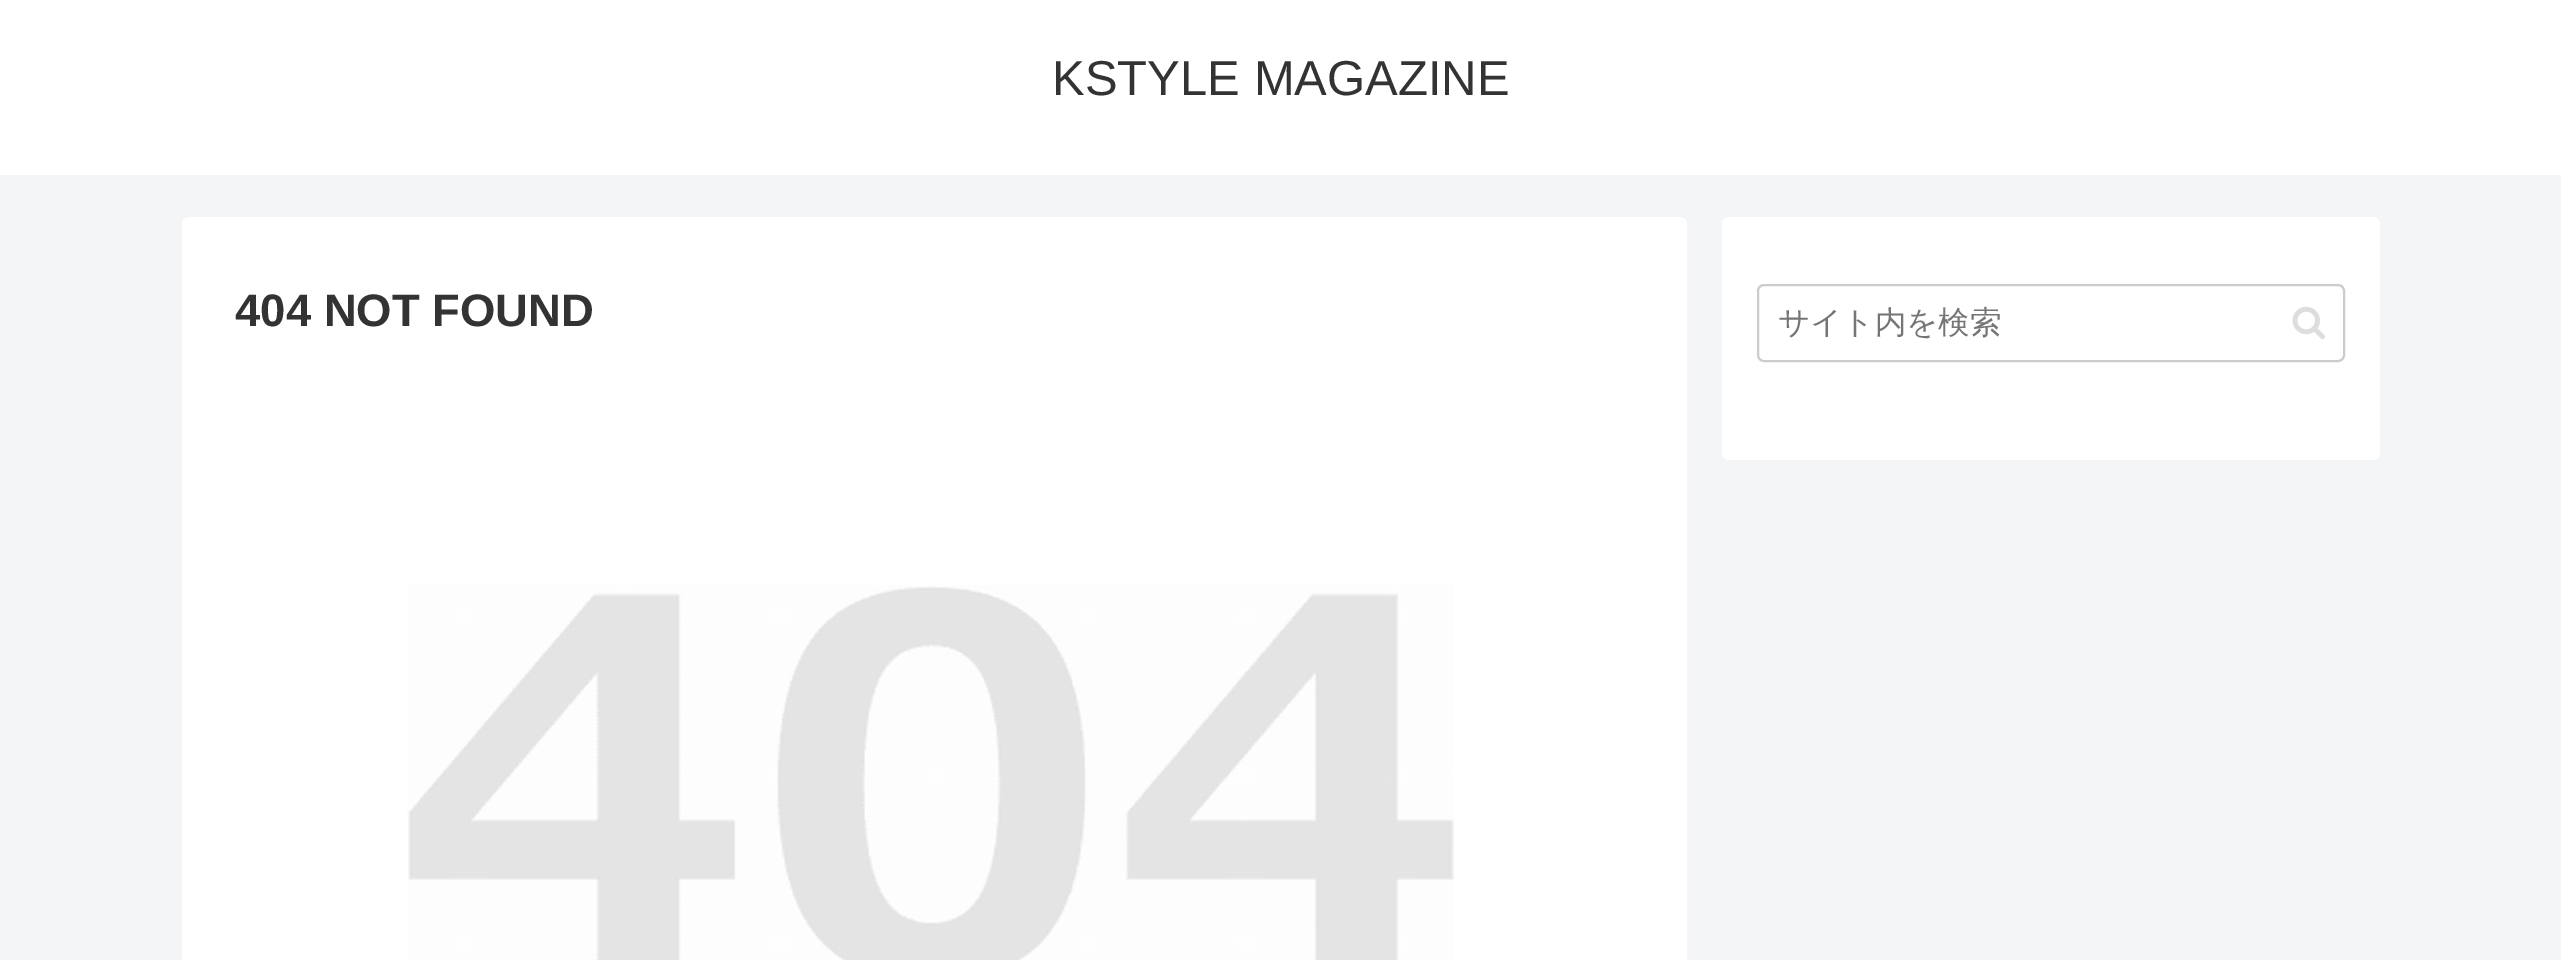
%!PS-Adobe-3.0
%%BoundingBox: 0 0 2561 960
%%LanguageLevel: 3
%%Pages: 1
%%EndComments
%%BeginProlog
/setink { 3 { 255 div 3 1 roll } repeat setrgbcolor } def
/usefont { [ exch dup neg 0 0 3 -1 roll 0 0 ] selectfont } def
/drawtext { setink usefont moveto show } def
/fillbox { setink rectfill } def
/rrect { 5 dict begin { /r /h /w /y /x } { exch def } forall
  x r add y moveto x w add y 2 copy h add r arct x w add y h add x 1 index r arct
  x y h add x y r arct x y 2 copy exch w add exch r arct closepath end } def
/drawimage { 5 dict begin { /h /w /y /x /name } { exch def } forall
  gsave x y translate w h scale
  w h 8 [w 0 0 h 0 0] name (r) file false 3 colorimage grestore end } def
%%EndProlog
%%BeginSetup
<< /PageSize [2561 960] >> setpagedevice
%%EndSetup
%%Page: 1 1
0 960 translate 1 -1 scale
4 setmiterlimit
0 0 2561 960 244 245 247 fillbox
0 0 2561 175 255 255 255 fillbox
(KSTYLE MAGAZINE) 1052 95 /LiberationSans-Regular 49 51 51 51 drawtext
255 255 255 setink
182 217 1505 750 7 rrect fill
(404 NOT FOUND) 235 326 /LiberationSans-Bold 45.5 51 51 51 drawtext
(assets/img1.rgb) 407 585 1047 375 drawimage
255 255 255 setink
1722 217 658 243 7 rrect fill
204 204 204 setink
2 setlinewidth
1758 285 586 76 6 rrect stroke
(サイト内を検索) 1778 333 /WenQuanYiZenHei-Medium 31.5 117 117 117 drawtext
(assets/img2.rgb) 2292 306 33 34 drawimage
showpage
%%EOF
